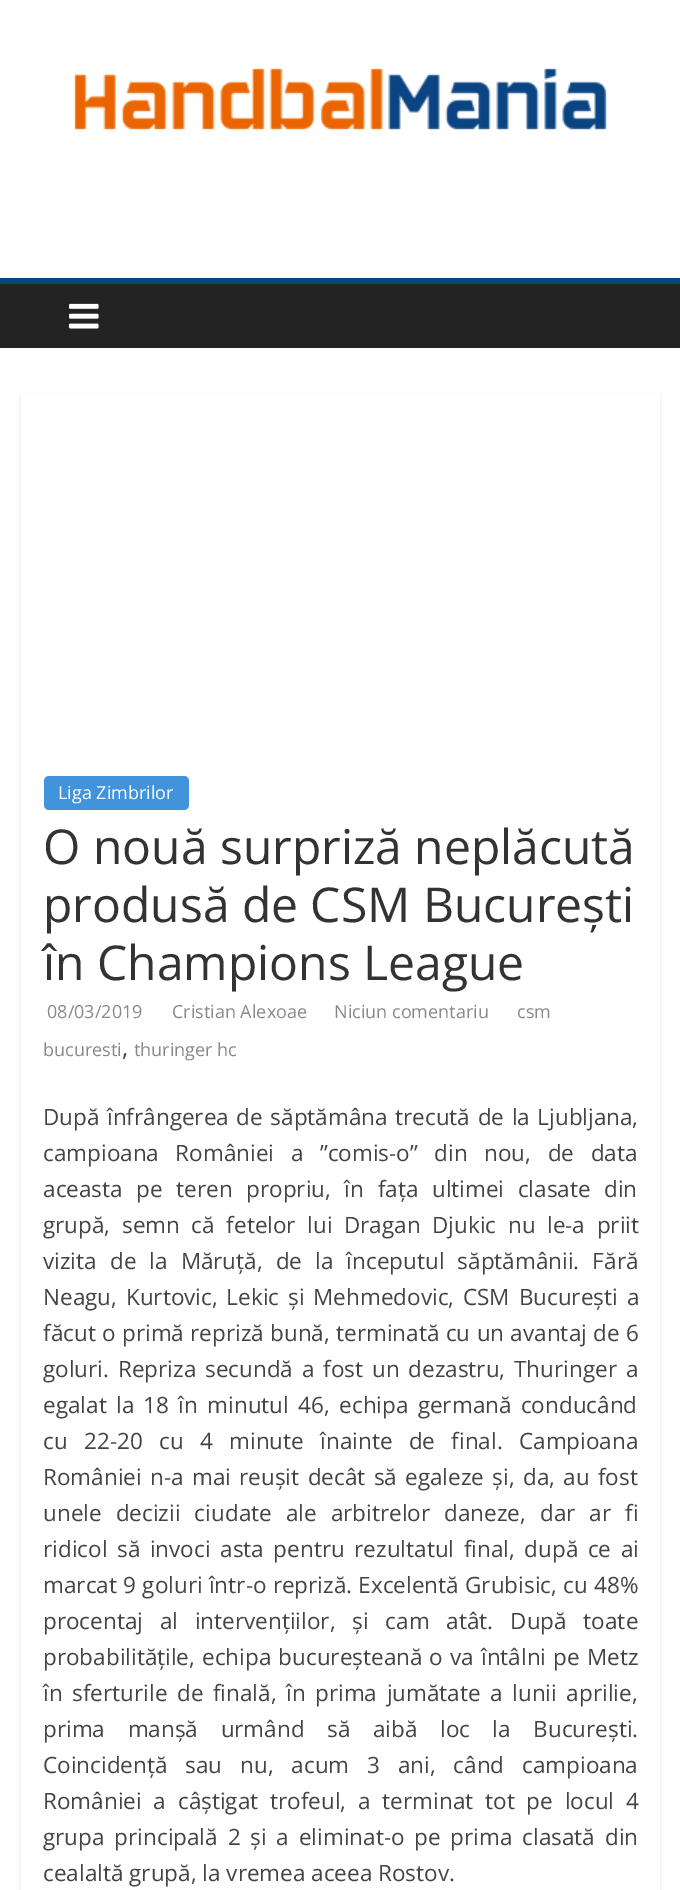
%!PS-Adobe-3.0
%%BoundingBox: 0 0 680 1890
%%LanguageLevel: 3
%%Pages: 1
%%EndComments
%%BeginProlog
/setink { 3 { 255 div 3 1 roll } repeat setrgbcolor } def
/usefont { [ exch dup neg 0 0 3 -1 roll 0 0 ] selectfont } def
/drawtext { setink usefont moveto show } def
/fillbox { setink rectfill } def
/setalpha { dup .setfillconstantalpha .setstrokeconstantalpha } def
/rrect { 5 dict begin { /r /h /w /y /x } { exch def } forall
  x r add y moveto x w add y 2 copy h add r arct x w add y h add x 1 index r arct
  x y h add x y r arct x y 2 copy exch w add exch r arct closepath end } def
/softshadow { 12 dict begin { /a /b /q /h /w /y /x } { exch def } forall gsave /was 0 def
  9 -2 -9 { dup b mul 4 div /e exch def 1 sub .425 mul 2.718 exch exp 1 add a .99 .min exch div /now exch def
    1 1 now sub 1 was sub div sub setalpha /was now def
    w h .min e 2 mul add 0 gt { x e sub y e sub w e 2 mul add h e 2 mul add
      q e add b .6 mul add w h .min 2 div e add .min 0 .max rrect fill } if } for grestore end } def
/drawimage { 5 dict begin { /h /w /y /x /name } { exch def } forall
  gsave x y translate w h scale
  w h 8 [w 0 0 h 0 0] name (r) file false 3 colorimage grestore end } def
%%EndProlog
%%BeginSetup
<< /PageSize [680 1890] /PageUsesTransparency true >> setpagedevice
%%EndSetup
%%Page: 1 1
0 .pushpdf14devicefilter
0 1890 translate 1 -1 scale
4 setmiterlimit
0 0 680 1890 255 255 255 fillbox
(assets/img1.rgb) 74 68 533 62 drawimage
0 284 680 64 35 35 35 fillbox
0 278 680 6 10 68 130 fillbox
(assets/img2.rgb) 69 303 30 26 drawimage
gsave
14 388 moveto 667 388 lineto 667 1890 lineto 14 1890 lineto closepath 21 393 moveto 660 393 lineto 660 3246 lineto 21 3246 lineto closepath eoclip newpath
0 0 0 setink
21 395 639 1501 0 2 0.1 softshadow
grestore
65 147 220 setink
44 776 145 34 5 rrect fill
(Liga Zimbrilor) 58 799 /OpenSans-Regular 18 255 255 255 drawtext
(O nouă surpriză neplăcută) 43 864 /OpenSans-Regular 48 51 51 51 drawtext
(produsă de CSM București) 43 922 /OpenSans-Regular 48 51 51 51 drawtext
(în Champions League) 43 980 /OpenSans-Regular 48 51 51 51 drawtext
(08/03/2019) 47 1018 /OpenSans-Regular 18 136 136 136 drawtext
(Cristian Alexoae) 172 1018 /OpenSans-Regular 18 136 136 136 drawtext
(Niciun comentariu) 334 1018 /OpenSans-Regular 18 136 136 136 drawtext
(csm) 517 1018 /OpenSans-Regular 18 136 136 136 drawtext
(bucuresti) 43 1056 /OpenSans-Regular 18 136 136 136 drawtext
(,) 122 1056 /OpenSans-Regular 24 68 68 68 drawtext
(thuringer hc) 134 1056 /OpenSans-Regular 18 136 136 136 drawtext
/OpenSans-Regular 22.5 usefont
68 68 68 setink
43 1125 moveto 1.75 0 32 (După înfrângerea de săptămâna trecută de la Ljubljana,) widthshow
43 1161 moveto 10.75 0 32 (campioana României a ”comis-o” din nou, de data) widthshow
43 1197 moveto 7.75 0 32 (aceasta pe teren propriu, în fața ultimei clasate din) widthshow
43 1233 moveto 5.75 0 32 (grupă, semn că fetelor lui Dragan Djukic nu le-a priit) widthshow
43 1269 moveto 7.25 0 32 (vizita de la Măruță, de la începutul săptămânii. Fără) widthshow
43 1305 moveto 3 0 32 (Neagu, Kurtovic, Lekic și Mehmedovic, CSM București a) widthshow
43 1341 moveto 0.5 0 32 (făcut o primă repriză bună, terminată cu un avantaj de 6) widthshow
43 1377 moveto 3 0 32 (goluri. Repriza secundă a fost un dezastru, Thuringer a) widthshow
43 1413 moveto 3.5 0 32 (egalat la 18 în minutul 46, echipa germană conducând) widthshow
43 1449 moveto 10.5 0 32 (cu 22-20 cu 4 minute înainte de final. Campioana) widthshow
43 1485 moveto 2.5 0 32 (României n-a mai reușit decât să egaleze și, da, au fost) widthshow
43 1521 moveto 8.25 0 32 (unele decizii ciudate ale arbitrelor daneze, dar ar fi) widthshow
43 1557 moveto 3.75 0 32 (ridicol să invoci asta pentru rezultatul final, după ce ai) widthshow
43 1593 moveto 0.5 0 32 (marcat 9 goluri într-o repriză. Excelentă Grubisic, cu 48%) widthshow
43 1629 moveto 11 0 32 (procentaj al intervențiilor, și cam atât. După toate) widthshow
43 1665 moveto 1.25 0 32 (probabilitățile, echipa bucureșteană o va întâlni pe Metz) widthshow
43 1701 moveto 3.75 0 32 (în sferturile de finală, în prima jumătate a lunii aprilie,) widthshow
43 1737 moveto 16.75 0 32 (prima manșă urmând să aibă loc la București.) widthshow
43 1773 moveto 12 0 32 (Coincidență sau nu, acum 3 ani, când campioana) widthshow
43 1809 moveto 6 0 32 (României a câștigat trofeul, a terminat tot pe locul 4) widthshow
43 1845 moveto 4 0 32 (grupa principală 2 și a eliminat-o pe prima clasată din) widthshow
(cealaltă grupă, la vremea aceea Rostov.) 43 1881 /OpenSans-Regular 22.5 68 68 68 drawtext
.poppdf14devicefilter showpage
%%EOF
